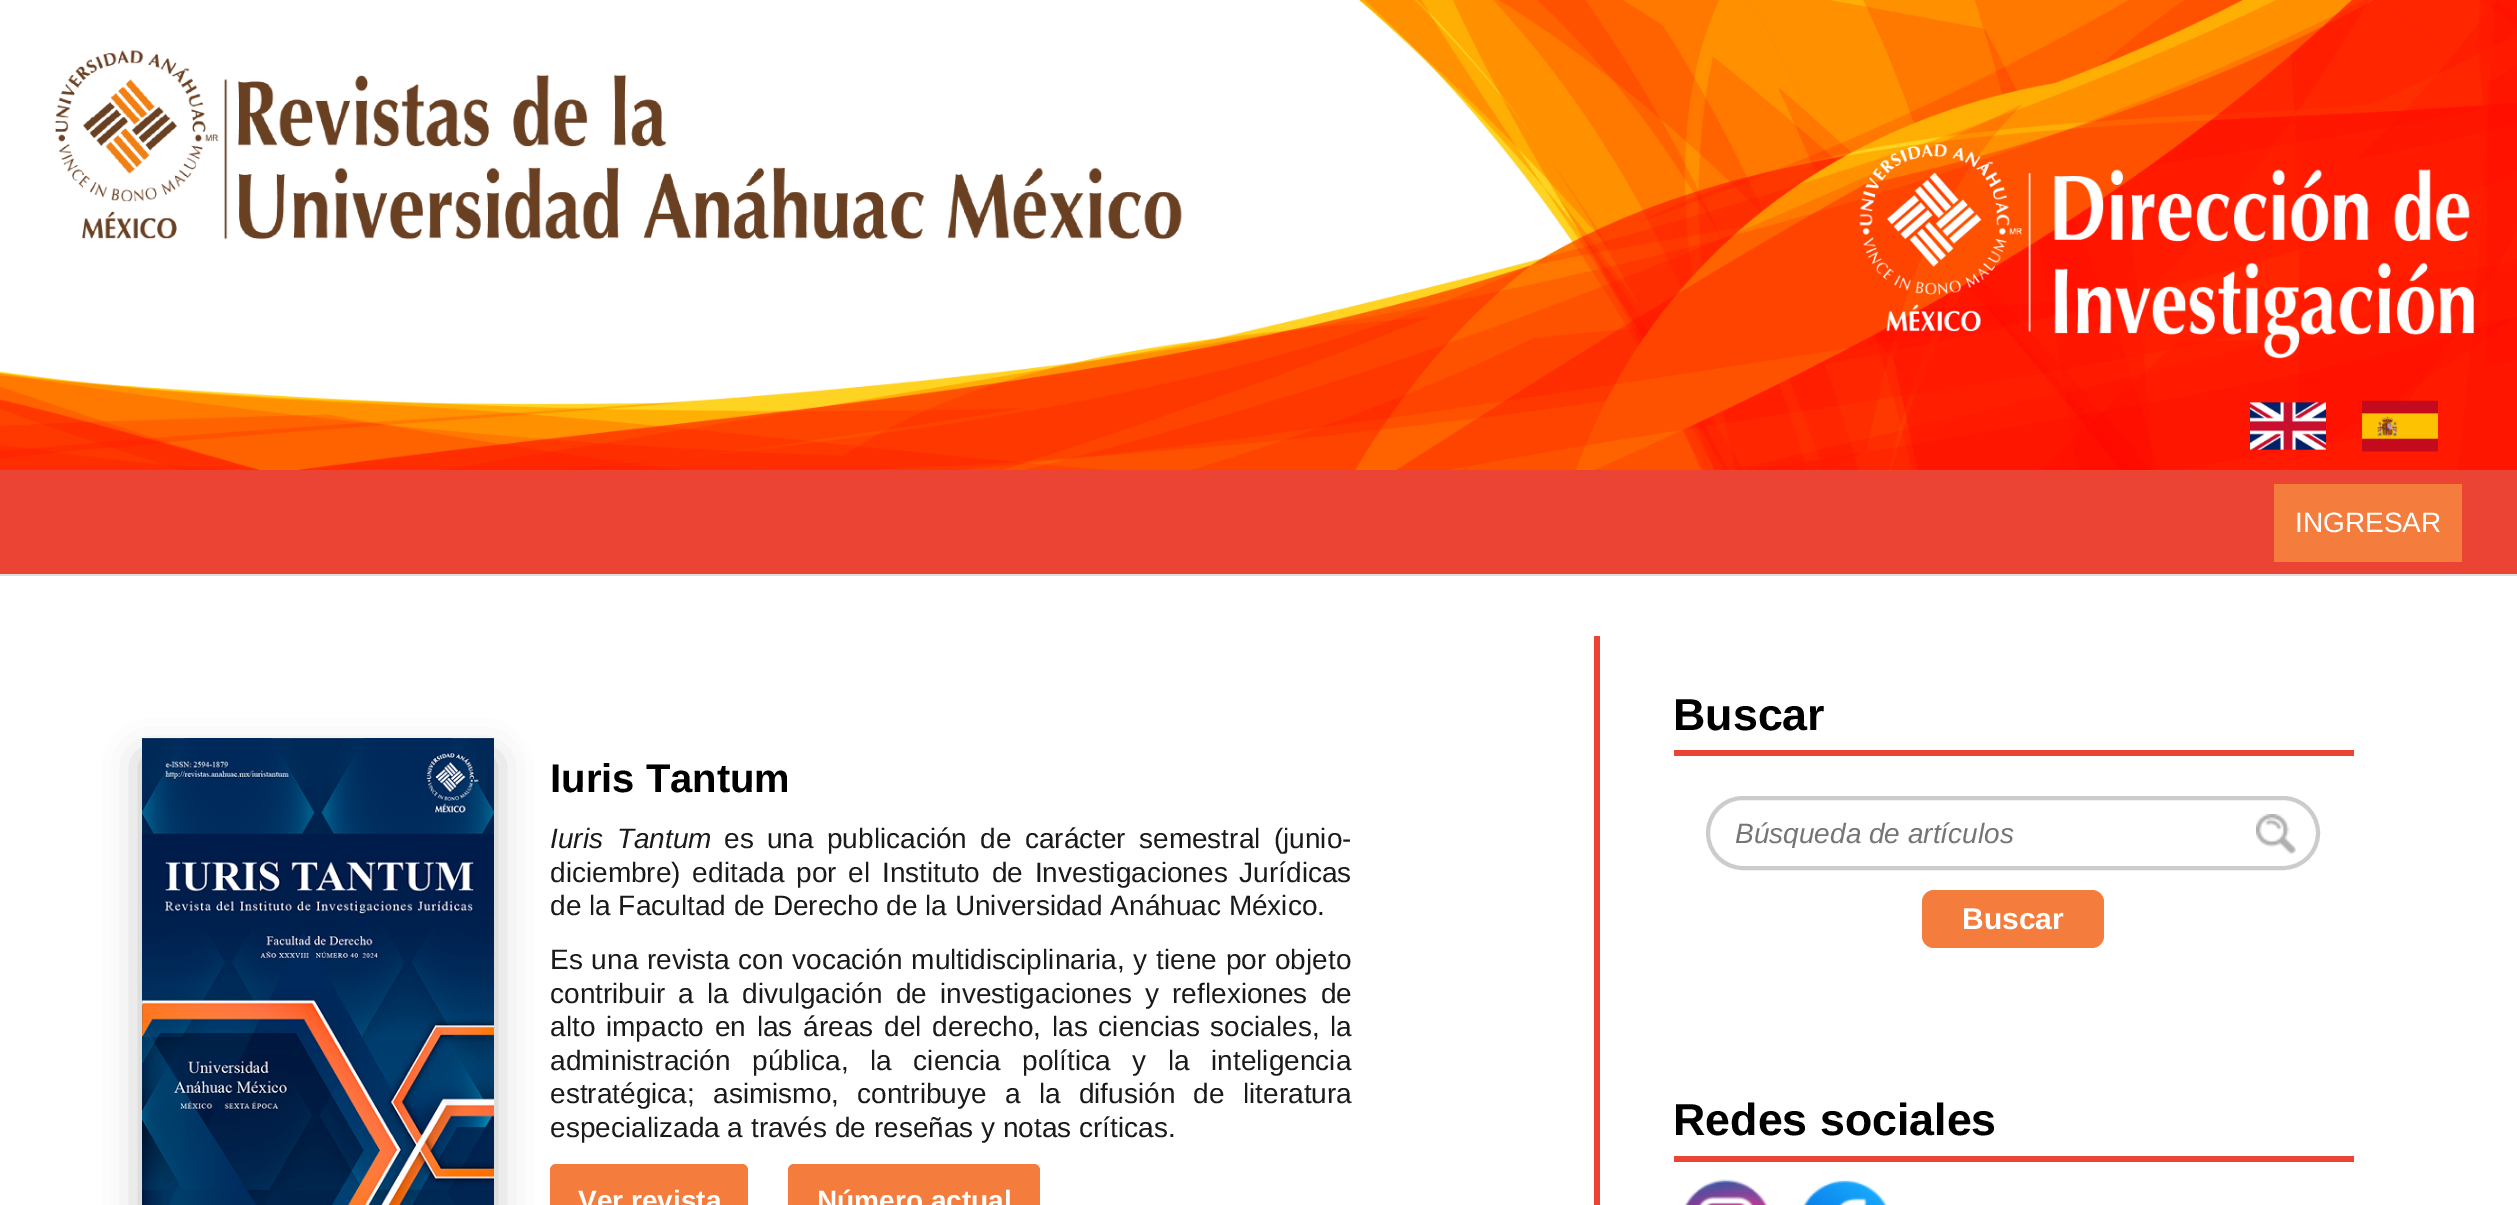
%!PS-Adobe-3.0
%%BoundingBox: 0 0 2517 1205
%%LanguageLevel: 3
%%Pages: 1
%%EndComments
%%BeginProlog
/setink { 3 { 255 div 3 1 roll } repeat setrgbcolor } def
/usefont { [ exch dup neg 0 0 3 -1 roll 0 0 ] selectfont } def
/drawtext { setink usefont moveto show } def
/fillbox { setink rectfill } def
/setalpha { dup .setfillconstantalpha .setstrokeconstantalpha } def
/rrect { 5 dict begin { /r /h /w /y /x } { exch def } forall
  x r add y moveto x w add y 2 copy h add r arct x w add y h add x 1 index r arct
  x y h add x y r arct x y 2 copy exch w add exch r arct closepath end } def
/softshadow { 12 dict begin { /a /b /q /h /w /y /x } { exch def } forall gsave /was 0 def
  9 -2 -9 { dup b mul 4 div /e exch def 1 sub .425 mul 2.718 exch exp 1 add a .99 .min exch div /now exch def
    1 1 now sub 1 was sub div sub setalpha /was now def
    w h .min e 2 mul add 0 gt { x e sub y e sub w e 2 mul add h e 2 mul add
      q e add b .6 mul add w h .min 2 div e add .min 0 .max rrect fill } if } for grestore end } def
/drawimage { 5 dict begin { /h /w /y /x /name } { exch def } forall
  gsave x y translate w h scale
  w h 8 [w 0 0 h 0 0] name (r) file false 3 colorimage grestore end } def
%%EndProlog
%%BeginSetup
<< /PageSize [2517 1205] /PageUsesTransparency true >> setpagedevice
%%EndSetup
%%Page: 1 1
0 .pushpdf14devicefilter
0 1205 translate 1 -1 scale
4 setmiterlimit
0 0 2517 1205 255 255 255 fillbox
(assets/img3.rgb) 0 0 2517 470 drawimage
(assets/img1.rgb) 2250 402 76 48 drawimage
(assets/img2.rgb) 2362 400 76 52 drawimage
0 470 2517 104 236 68 52 fillbox
0 574 2517 2 221 221 221 fillbox
2274 484 188 78 244 124 60 fillbox
(INGRESAR) 2295 532 /LiberationSans-Regular 28 255 255 255 drawtext
1594 636 6 569 236 68 52 fillbox
0 0 0 setink
142 758 352 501 0 18 0.25 softshadow
(assets/img4.rgb) 142 738 352 467 drawimage
(Iuris Tantum) 550 792 /LiberationSans-Bold 40 0 0 0 drawtext
/LiberationSans-Italic 28 usefont
26 26 26 setink
550 848 moveto 6 0 32 (Iuris Tantum) widthshow
/LiberationSans-Regular 28 usefont
724 848 moveto 5.5 0 32 (es una publicación de carácter semestral \(junio-) widthshow
550 882 moveto 4 0 32 (diciembre\) editada por el Instituto de Investigaciones Jurídicas) widthshow
(de la Facultad de Derecho de la Universidad Anáhuac México.) 550 915 /LiberationSans-Regular 28 26 26 26 drawtext
550 969 moveto 1 0 32 (Es una revista con vocación multidisciplinaria, y tiene por objeto) widthshow
550 1003 moveto 5.5 0 32 (contribuir a la divulgación de investigaciones y reflexiones de) widthshow
550 1036 moveto 3 0 32 (alto impacto en las áreas del derecho, las ciencias sociales, la) widthshow
550 1070 moveto 13.75 0 32 (administración pública, la ciencia política y la inteligencia) widthshow
550 1103 moveto 10.5 0 32 (estratégica; asimismo, contribuye a la difusión de literatura) widthshow
(especializada a través de reseñas y notas críticas.) 550 1137 /LiberationSans-Regular 28 26 26 26 drawtext
244 124 60 setink
550 1164 198 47 6 rrect fill
(Ver revista) 578 1210 /LiberationSans-Bold 28 255 255 255 drawtext
244 124 60 setink
788 1164 252 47 6 rrect fill
(Número actual) 817 1210 /LiberationSans-Bold 28 255 255 255 drawtext
1674 750 680 6 236 68 52 fillbox
(Buscar) 1673 730 /LiberationSans-Bold 44.75 0 0 0 drawtext
204 204 204 setink
4 setlinewidth
1708 798 610 70 35 rrect stroke
gsave
1734 816 512 32 rectclip
(Búsqueda de artículos) 1735 843 /LiberationSans-Italic 28 117 117 117 drawtext
grestore
(assets/img5.rgb) 2256 814 40 40 drawimage
244 124 60 setink
1922 890 182 58 12 rrect fill
(Buscar) 1962 929 /LiberationSans-Bold 30 255 255 255 drawtext
1674 1156 680 6 236 68 52 fillbox
(Redes sociales) 1673 1135 /LiberationSans-Bold 44.75 0 0 0 drawtext
(assets/img6.rgb) 1684 1179 84 26 drawimage
(assets/img7.rgb) 1803 1180 84 25 drawimage
.poppdf14devicefilter showpage
%%EOF
